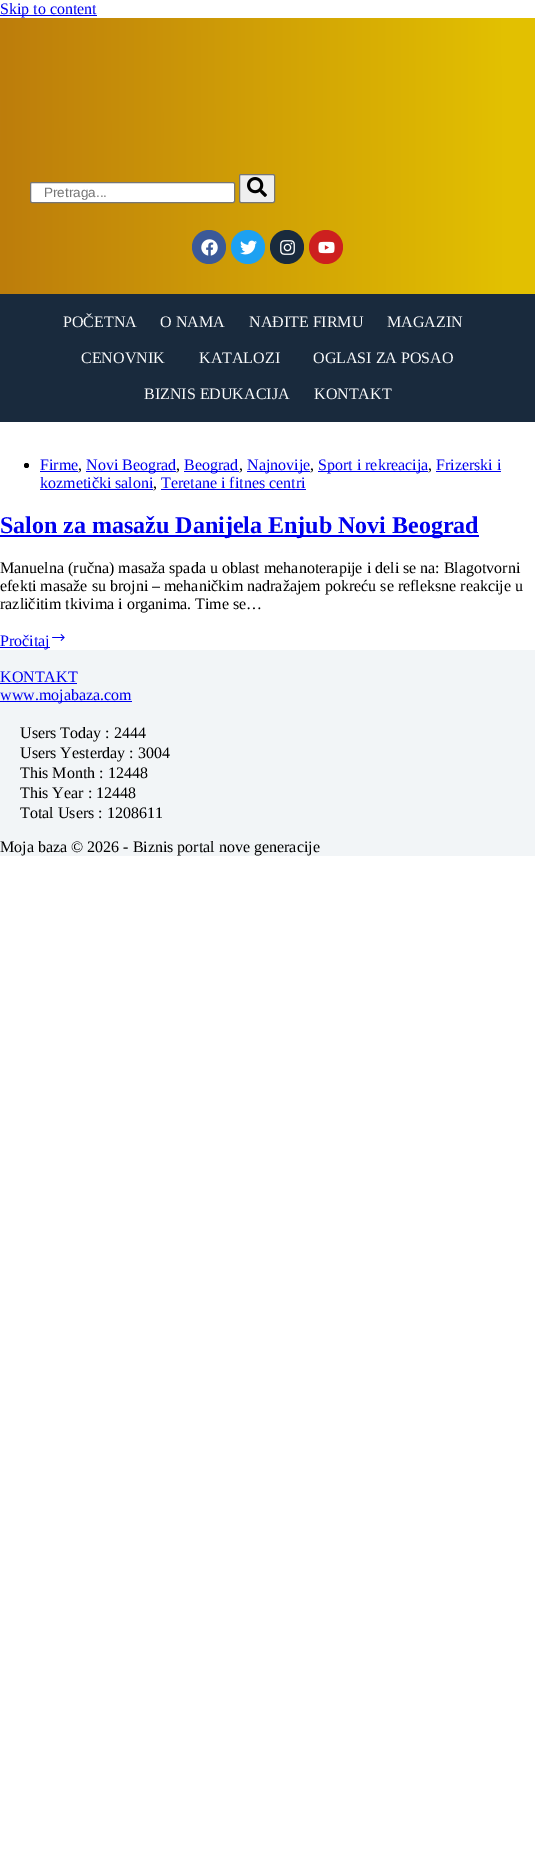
%!PS-Adobe-3.0
%%BoundingBox: 0 0 535 1865
%%LanguageLevel: 3
%%Pages: 1
%%EndComments
%%BeginProlog
/setink { 3 { 255 div 3 1 roll } repeat setrgbcolor } def
/usefont { [ exch dup neg 0 0 3 -1 roll 0 0 ] selectfont } def
/drawtext { setink usefont moveto show } def
/fillbox { setink rectfill } def
/disc { newpath 0 360 arc closepath } def
/rrect { 5 dict begin { /r /h /w /y /x } { exch def } forall
  x r add y moveto x w add y 2 copy h add r arct x w add y h add x 1 index r arct
  x y h add x y r arct x y 2 copy exch w add exch r arct closepath end } def
/drawimage { 5 dict begin { /h /w /y /x /name } { exch def } forall
  gsave x y translate w h scale
  w h 8 [w 0 0 h 0 0] name (r) file false 3 colorimage grestore end } def
%%EndProlog
%%BeginSetup
<< /PageSize [535 1865] >> setpagedevice
%%EndSetup
%%Page: 1 1
0 1865 translate 1 -1 scale
4 setmiterlimit
0 0 535 1865 255 255 255 fillbox
0 15 97 1 0 0 238 fillbox
(Skip to content) 0 14 /LiberationSerif-Regular 16 0 0 238 drawtext
gsave 0 18 moveto 535 18 lineto 535 144 lineto 0 144 lineto closepath clip newpath
<< /ShadingType 2 /ColorSpace /DeviceRGB /Coords [0 97 535 96] /Extend [true true] /Function << /FunctionType 3 /Domain [0 1] /Functions [<< /FunctionType 2 /Domain [0 1] /C0 [0.741 0.49 0.047] /C1 [0.886 0.753 0.004] /N 1 >> << /FunctionType 2 /Domain [0 1] /C0 [0.886 0.753 0.004] /C1 [0.886 0.753 0.004] /N 1 >>] /Bounds [0.94] /Encode [0 1 0 1] >> >> shfill grestore
gsave 0 144 moveto 535 144 lineto 535 294 lineto 0 294 lineto closepath clip newpath
<< /ShadingType 2 /ColorSpace /DeviceRGB /Coords [0 219 535 219] /Extend [true true] /Function << /FunctionType 3 /Domain [0 1] /Functions [<< /FunctionType 2 /Domain [0 1] /C0 [0.741 0.49 0.047] /C1 [0.886 0.753 0.004] /N 1 >> << /FunctionType 2 /Domain [0 1] /C0 [0.886 0.753 0.004] /C1 [0.886 0.753 0.004] /N 1 >>] /Bounds [0.94] /Encode [0 1 0 1] >> >> shfill grestore
255 255 255 setink
30.5 182.5 204 20 1.5 rrect gsave fill grestore
118 118 118 setink
stroke
(Pretraga...) 44 197 /LiberationSans-Regular 13.5 117 117 117 drawtext
239 239 239 setink
239.5 174.5 35 28 1.5 rrect gsave fill grestore
118 118 118 setink
stroke
(assets/img1.rgb) 247 177 20 20 drawimage
59 89 152 setink
209 247 17 disc fill
(assets/img2.rgb) 201 239 17 17 drawimage
29 161 242 setink
248 247 17 disc fill
(assets/img3.rgb) 240 240 17 15 drawimage
25 42 61 setink
287 247 17 disc fill
(assets/img4.rgb) 280 240 15 15 drawimage
205 32 31 setink
326 247 17 disc fill
(assets/img5.rgb) 318 241 17 13 drawimage
0 294 535 128 25 42 61 fillbox
(POČETNA) 63 327 /LiberationSerif-Regular 16 250 251 252 drawtext
(O NAMA) 160 327 /LiberationSerif-Regular 16 250 251 252 drawtext
(NAĐITE FIRMU) 249 327 /LiberationSerif-Regular 16 250 251 252 drawtext
(MAGAZIN) 387 327 /LiberationSerif-Regular 16 250 251 252 drawtext
(CENOVNIK) 81 363 /LiberationSerif-Regular 16 250 251 252 drawtext
(KATALOZI) 199 363 /LiberationSerif-Regular 16 250 251 252 drawtext
(OGLASI ZA POSAO) 313 363 /LiberationSerif-Regular 16 250 251 252 drawtext
(BIZNIS EDUKACIJA) 144 399 /LiberationSerif-Regular 16 250 251 252 drawtext
(KONTAKT) 314 399 /LiberationSerif-Regular 16 250 251 252 drawtext
0 0 0 setink
26.5 465.5 2.5 disc fill
(Firme) 40 470 /LiberationSerif-Regular 16 0 0 238 drawtext
40 471 38 1 0 0 238 fillbox
86 471 90 1 0 0 238 fillbox
(Novi Beograd) 86 470 /LiberationSerif-Regular 16 0 0 238 drawtext
184 471 55 1 0 0 238 fillbox
(Beograd) 184 470 /LiberationSerif-Regular 16 0 0 238 drawtext
247 471 63 1 0 0 238 fillbox
(Najnovije) 247 470 /LiberationSerif-Regular 16 0 0 238 drawtext
318 471 110 1 0 0 238 fillbox
(Sport i rekreacija) 318 470 /LiberationSerif-Regular 16 0 0 238 drawtext
(Frizerski i) 436 470 /LiberationSerif-Regular 16 0 0 238 drawtext
436 471 65 1 0 0 238 fillbox
(,) 78 470 /LiberationSerif-Regular 16 0 0 0 drawtext
(,) 176 470 /LiberationSerif-Regular 16 0 0 0 drawtext
(,) 239 470 /LiberationSerif-Regular 16 0 0 0 drawtext
(,) 310 470 /LiberationSerif-Regular 16 0 0 0 drawtext
(,) 428 470 /LiberationSerif-Regular 16 0 0 0 drawtext
(kozmetički saloni) 40 488 /LiberationSerif-Regular 16 0 0 238 drawtext
40 489 113 1 0 0 238 fillbox
(,) 153 488 /LiberationSerif-Regular 16 0 0 0 drawtext
(Teretane i fitnes centri) 161 488 /LiberationSerif-Regular 16 0 0 238 drawtext
161 489 145 1 0 0 238 fillbox
0 535 479 2 0 0 238 fillbox
(Salon za masažu Danijela Enjub Novi Beograd) 0 533 /LiberationSerif-Bold 24 0 0 238 drawtext
(Manuelna \(ručna\) masaža spada u oblast mehanoterapije i deli se na: Blagotvorni) 0 573 /LiberationSerif-Regular 16 0 0 0 drawtext
(efekti masaže su brojni – mehaničkim nadražajem pokreću se refleksne reakcije u) 0 591 /LiberationSerif-Regular 16 0 0 0 drawtext
(različitim tkivima i organima. Time se…) 0 609 /LiberationSerif-Regular 16 0 0 0 drawtext
0 647 50 1 0 0 238 fillbox
(Pročitaj) 0 646 /LiberationSerif-Regular 16 0 0 238 drawtext
(assets/img6.rgb) 52 634 13 7 drawimage
0 650 535 206 242 245 247 fillbox
(KONTAKT) 0 682 /LiberationSerif-Regular 16 0 0 238 drawtext
0 683 77 1 0 0 238 fillbox
0 701 132 1 0 0 238 fillbox
(www.mojabaza.com) 0 700 /LiberationSerif-Regular 16 0 0 238 drawtext
(Users Today : 2444) 20 738 /LiberationSerif-Regular 16 0 0 0 drawtext
(Users Yesterday : 3004) 20 758 /LiberationSerif-Regular 16 0 0 0 drawtext
(This Month : 12448) 20 778 /LiberationSerif-Regular 16 0 0 0 drawtext
(This Year : 12448) 20 798 /LiberationSerif-Regular 16 0 0 0 drawtext
(Total Users : 1208611) 20 818 /LiberationSerif-Regular 16 0 0 0 drawtext
(Moja baza © 2026 - Biznis portal nove generacije) 0 852 /LiberationSerif-Regular 16 0 0 0 drawtext
showpage
%%EOF
